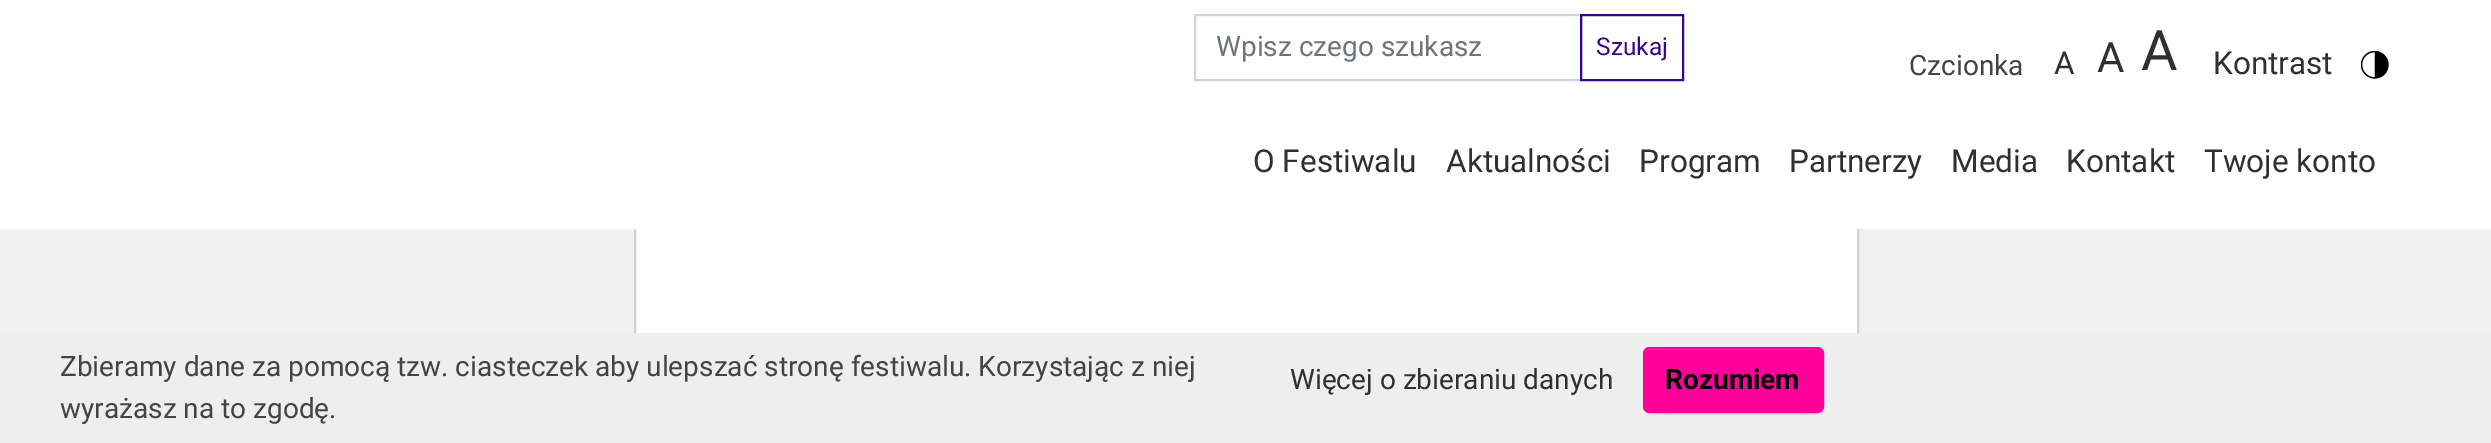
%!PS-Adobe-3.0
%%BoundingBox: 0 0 2491 443
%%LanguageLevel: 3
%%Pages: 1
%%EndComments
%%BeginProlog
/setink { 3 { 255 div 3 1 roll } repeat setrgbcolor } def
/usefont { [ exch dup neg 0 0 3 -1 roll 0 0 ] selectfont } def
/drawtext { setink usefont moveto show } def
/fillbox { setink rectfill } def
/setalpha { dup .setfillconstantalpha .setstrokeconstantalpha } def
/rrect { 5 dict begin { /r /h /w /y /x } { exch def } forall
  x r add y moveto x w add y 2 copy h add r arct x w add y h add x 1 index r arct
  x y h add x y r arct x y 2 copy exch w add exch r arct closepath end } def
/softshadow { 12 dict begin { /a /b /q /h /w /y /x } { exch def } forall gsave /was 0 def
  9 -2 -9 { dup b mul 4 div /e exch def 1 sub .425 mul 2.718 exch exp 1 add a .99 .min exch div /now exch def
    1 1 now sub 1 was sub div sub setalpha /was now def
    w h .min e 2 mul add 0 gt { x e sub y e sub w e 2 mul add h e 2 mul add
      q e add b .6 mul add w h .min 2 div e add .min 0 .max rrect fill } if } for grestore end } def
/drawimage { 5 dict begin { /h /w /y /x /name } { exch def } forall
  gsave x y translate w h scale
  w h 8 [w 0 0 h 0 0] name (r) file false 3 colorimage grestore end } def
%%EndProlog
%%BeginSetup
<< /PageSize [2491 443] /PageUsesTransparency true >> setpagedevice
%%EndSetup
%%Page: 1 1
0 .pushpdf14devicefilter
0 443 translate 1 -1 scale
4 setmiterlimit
0 0 2491 443 241 241 241 fillbox
636 229 1221 104 255 255 255 fillbox
204 208 212 setink
2 setlinewidth
635 89 1223 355 rectstroke
0 0 2491 229 255 255 255 fillbox
206 212 218 setink
1195 15 386 65 rectstroke
(Wpisz czego szukasz) 1216 56 /Roboto-Regular 28 108 117 125 drawtext
55 6 132 setink
1581 15 102 65 rectstroke
(Szukaj) 1596 55 /Roboto-Regular 24.5 55 6 132 drawtext
(Czcionka) 1909 75 /Roboto-Regular 28 68 68 68 drawtext
(A) 2054 74 /Roboto-Regular 31.5 48 48 48 drawtext
(A) 2097 72 /Roboto-Regular 42 48 48 48 drawtext
(A) 2141 70 /Roboto-Regular 56 48 48 48 drawtext
(Kontrast) 2213 74 /Roboto-Regular 31.5 48 48 48 drawtext
(assets/img1.rgb) 2361 51 28 28 drawimage
(O Festiwalu) 1253 172 /Roboto-Regular 31.5 48 48 48 drawtext
(Aktualności) 1446 172 /Roboto-Regular 31.5 48 48 48 drawtext
(Program) 1639 172 /Roboto-Regular 31.5 48 48 48 drawtext
(Partnerzy) 1789 172 /Roboto-Regular 31.5 48 48 48 drawtext
(Media) 1951 172 /Roboto-Regular 31.5 48 48 48 drawtext
(Kontakt) 2066 172 /Roboto-Regular 31.5 48 48 48 drawtext
(Twoje konto) 2204 172 /Roboto-Regular 31.5 48 48 48 drawtext
0 333 2491 110 238 238 238 fillbox
(Zbieramy dane za pomocą tzw. ciasteczek aby ulepszać stronę festiwalu. Korzystając z niej) 60 376 /Roboto-Regular 28 68 68 68 drawtext
(wyrażasz na to zgodę.) 60 418 /Roboto-Regular 28 68 68 68 drawtext
(Więcej o zbieraniu danych) 1290 389 /Roboto-Regular 28 48 48 48 drawtext
0 0 0 setink
1643 348 181 67 7 1 0.07 softshadow
255 0 154 setink
1643 347 181 66 7 rrect fill
255 38 169 setink
1650 350 moveto 1816 350 lineto 1819 350 1822 352 1822 355 curveto 1822 353 lineto 1822 350 1820 348 1817 348 curveto 1650 348 lineto 1647 348 1645 350 1645 353 curveto 1645 355 lineto 1645 352 1647 350 1650 350 curveto closepath fill
255 0 154 setink
1644 348 179 64 6 rrect stroke
(Rozumiem) 1665 389 /Roboto-Bold 28 0 0 0 drawtext
.poppdf14devicefilter showpage
%%EOF
